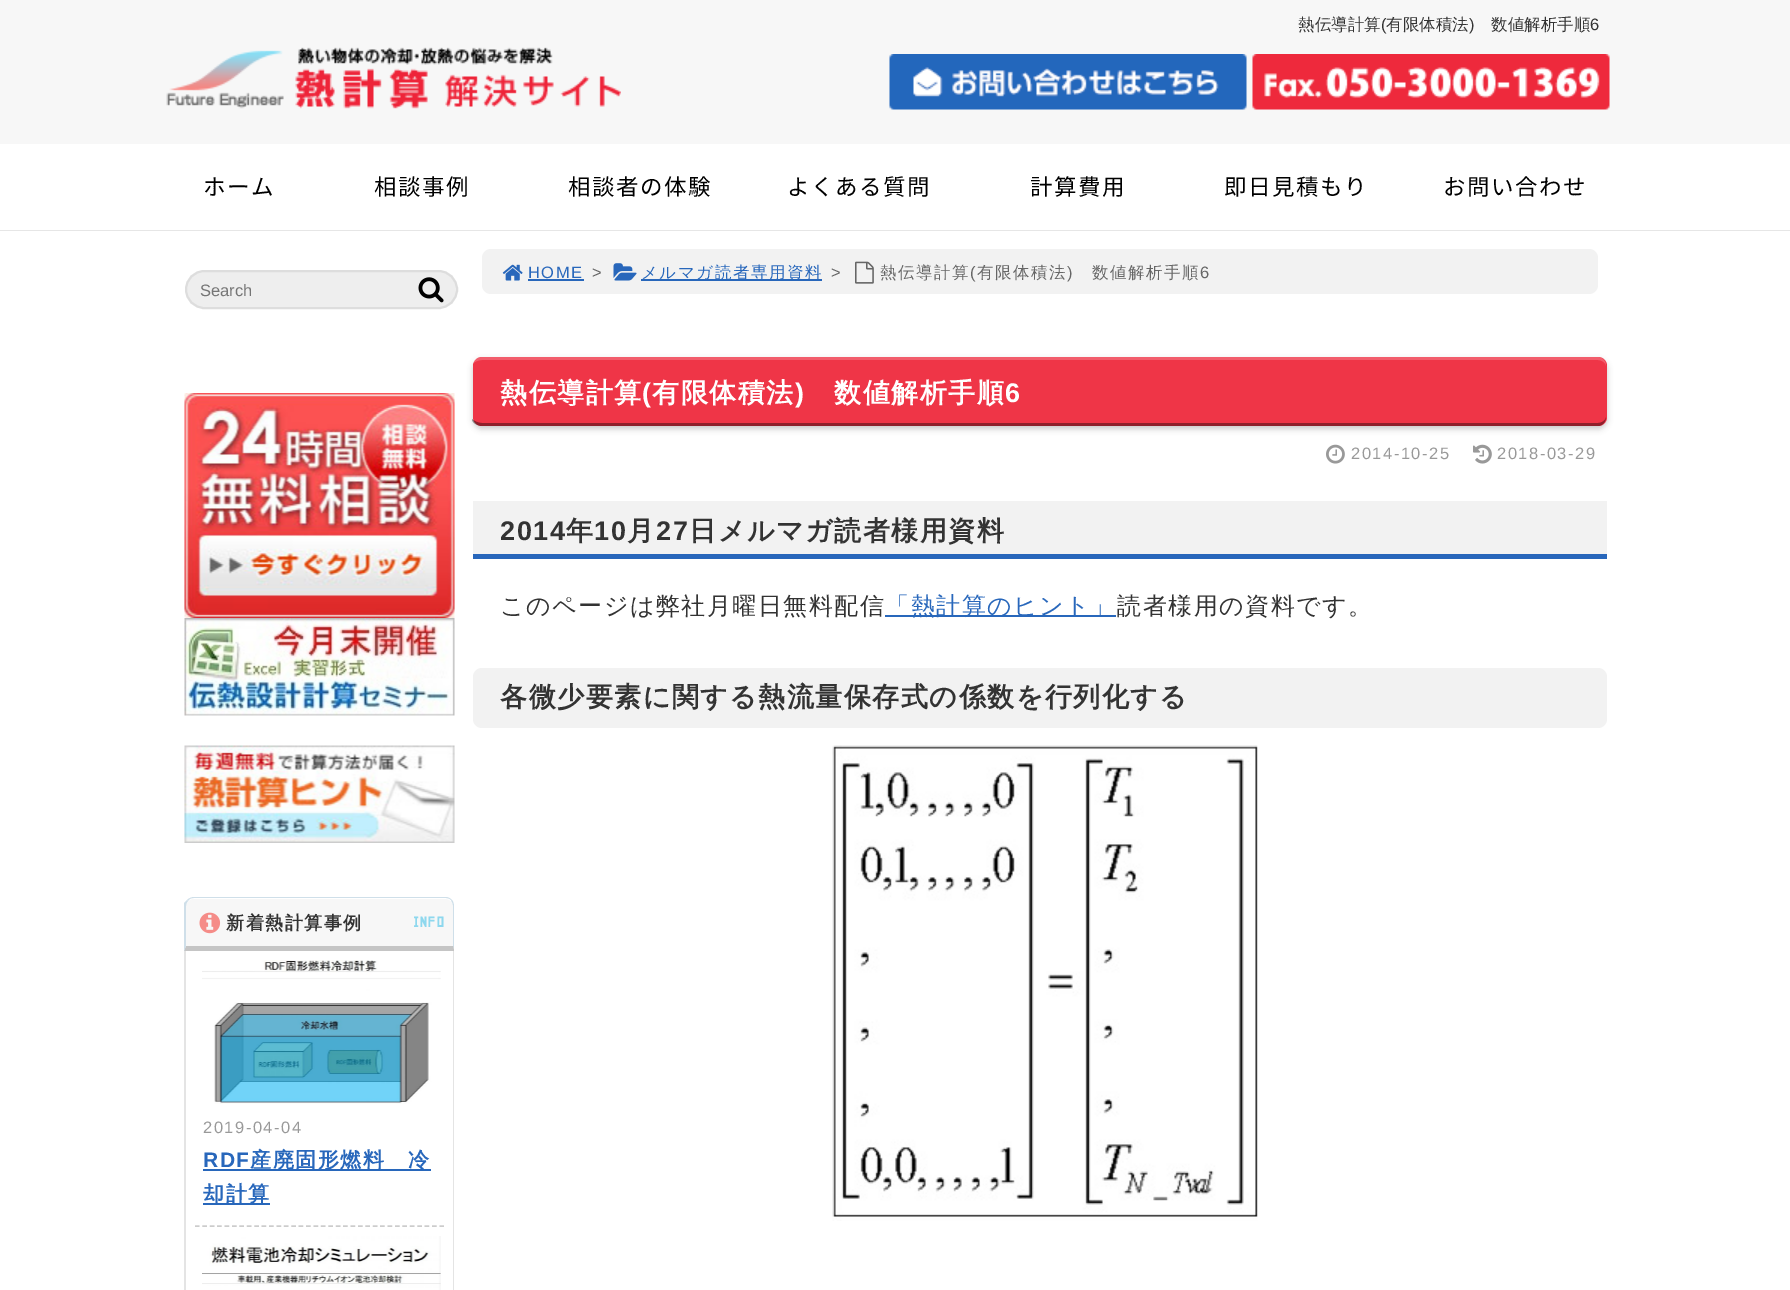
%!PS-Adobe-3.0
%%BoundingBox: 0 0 1790 1290
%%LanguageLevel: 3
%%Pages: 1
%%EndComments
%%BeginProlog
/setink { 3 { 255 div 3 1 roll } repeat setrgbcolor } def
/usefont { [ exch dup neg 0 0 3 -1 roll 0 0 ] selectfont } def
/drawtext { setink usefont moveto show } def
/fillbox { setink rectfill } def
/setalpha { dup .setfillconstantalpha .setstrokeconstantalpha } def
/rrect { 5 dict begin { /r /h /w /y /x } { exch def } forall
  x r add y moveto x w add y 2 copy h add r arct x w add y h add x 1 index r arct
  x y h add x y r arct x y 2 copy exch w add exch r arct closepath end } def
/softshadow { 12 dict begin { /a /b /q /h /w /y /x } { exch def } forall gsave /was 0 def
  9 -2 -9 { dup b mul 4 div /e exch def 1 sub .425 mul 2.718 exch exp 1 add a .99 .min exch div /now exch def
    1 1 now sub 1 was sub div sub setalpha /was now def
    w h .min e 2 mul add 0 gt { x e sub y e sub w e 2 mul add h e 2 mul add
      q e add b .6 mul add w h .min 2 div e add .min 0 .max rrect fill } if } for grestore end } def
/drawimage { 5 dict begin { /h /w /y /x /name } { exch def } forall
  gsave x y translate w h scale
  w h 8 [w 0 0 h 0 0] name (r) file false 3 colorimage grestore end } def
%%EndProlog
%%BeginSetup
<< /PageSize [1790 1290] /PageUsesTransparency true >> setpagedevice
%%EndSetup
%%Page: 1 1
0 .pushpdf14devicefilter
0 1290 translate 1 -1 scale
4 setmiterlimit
0 0 1790 1290 255 255 255 fillbox
0 0 1790 144 247 247 247 fillbox
(熱伝導計算) 1298 30 /WenQuanYiZenHei-Medium 16.5 51 51 51 drawtext
(\() 1381 30 /LiberationSans-Regular 16.5 51 51 51 drawtext
(有限体積法) 1386 30 /WenQuanYiZenHei-Medium 16.5 51 51 51 drawtext
(\)) 1469 30 /LiberationSans-Regular 16.5 51 51 51 drawtext
(数値解析手順) 1491 30 /WenQuanYiZenHei-Medium 16.5 51 51 51 drawtext
(6) 1590 30 /LiberationSans-Regular 16.5 51 51 51 drawtext
(assets/img1.rgb) 166 47 455 62 drawimage
(assets/img2.rgb) 889 54 358 56 drawimage
(assets/img3.rgb) 1252 54 358 56 drawimage
0 230 1790 1 230 230 230 fillbox
/NotoSansJP-Regular 22.5 usefont
0 0 0 setink
203 195 moveto 1.5 0 (ホーム) ashow
374 195 moveto 1.5 0 (相談事例) ashow
568 195 moveto 1.5 0 (相談者の体験) ashow
787 195 moveto 1.5 0 (よくある質問) ashow
1030 195 moveto 1.5 0 (計算費用) ashow
1224 195 moveto 1.5 0 (即日見積もり) ashow
1443 195 moveto 1.5 0 (お問い合わせ) ashow
238 238 238 setink
186 271 271 37 18.5 rrect gsave fill grestore
221 221 221 setink
2 setlinewidth
stroke
(Search) 200 296 /LiberationSans-Regular 16.5 117 117 117 drawtext
(assets/img4.rgb) 418 277 26 26 drawimage
(assets/img5.rgb) 184 393 271 225 drawimage
(assets/img6.rgb) 184 618 271 98 drawimage
(assets/img7.rgb) 184 745 271 98 drawimage
247 247 247 setink
194 899 moveto 445 899 lineto 449.5 899 453 902.5 453 907 curveto 453 947 lineto 186 947 lineto 186 907 lineto 186 902.5 189.5 899 194 899 curveto closepath fill
207 223 233 setink
194 897 moveto 192 897 189 898 187 900 curveto 188 901 lineto 189 899 191 898 194 898 curveto 446 898 lineto 448 898 450 899 451 900 curveto 452 900 lineto 450 898 448 897 446 897 curveto closepath fill
452 900 moveto 453 901 454 904 454 906 curveto 454 950 lineto 453 946 lineto 453 906 lineto 453 904 452 902 451 900 curveto closepath fill
197 197 197 setink
184 951 moveto 454 951 lineto 454 950 lineto 453 946 lineto 186 946 lineto closepath fill
207 223 233 setink
184 951 moveto 184 903 lineto 187 900 lineto 188 901 lineto 187 902 186 904 186 906 curveto 186 946 lineto closepath fill
(assets/img8.rgb) 199 912 22 22 drawimage
/WenQuanYiZenHei-Bold 18 usefont
51 51 51 setink
226 929 moveto 1.5 0 (新着熱計算事例) ashow
(INFO) 413 927 /Geo-Bold 18 142 216 238 drawtext
228 228 228 setink
184 951 moveto 454 951 lineto 454 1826 lineto 454 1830 450 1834 446 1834 curveto 194 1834 lineto 189 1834 184 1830 184 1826 curveto closepath 186 951 moveto 453 951 lineto 453 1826 lineto 453 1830 450 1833 446 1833 curveto 194 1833 lineto 189 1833 186 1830 186 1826 curveto closepath eofill
204 204 204 setink
1.5 setlinewidth
[4.5 2.91] 0 setdash
195 1226 moveto 444 1226 lineto stroke
(assets/img9.rgb) 202 960 239 144 drawimage
/LiberationSans-Regular 16.5 usefont
153 153 153 setink
203 1133 moveto 1.5 0 (2019-04-04) ashow
/LiberationSans-Bold 21 usefont
40 103 187 setink
203 1167 moveto 1.5 0 (RDF) ashow
203 1169 228 2 40 103 187 fillbox
/WenQuanYiZenHei-Bold 21 usefont
250 1167 moveto 1.5 0 (産廃固形燃料　冷) ashow
203 1203 67 2 40 103 187 fillbox
203 1201 moveto 1.5 0 (却計算) ashow
(assets/img10.rgb) 202 1236 239 54 drawimage
242 242 242 setink
482 249 1116 45 9 rrect fill
(assets/img11.rgb) 502 264 21 17 drawimage
/LiberationSans-Regular 16.5 usefont
40 103 187 setink
528 278 moveto 1.5 0 (HOME) ashow
528 279 56 2 40 103 187 fillbox
102 102 102 setink
592 278 moveto 1.5 0 (>) ashow
(assets/img12.rgb) 613 263 24 18 drawimage
641 279 181 2 40 103 187 fillbox
/WenQuanYiZenHei-Medium 16.5 usefont
641 278 moveto 1.5 0 (メルマガ読者専用資料) ashow
/LiberationSans-Regular 16.5 usefont
102 102 102 setink
831 278 moveto 1.5 0 (>) ashow
(assets/img13.rgb) 855 261 19 23 drawimage
/WenQuanYiZenHei-Medium 16.5 usefont
880 278 moveto 1.5 0 (熱伝導計算) ashow
/LiberationSans-Regular 16.5 usefont
970 278 moveto 1.5 0 (\() ashow
/WenQuanYiZenHei-Medium 16.5 usefont
977 278 moveto 1.5 0 (有限体積法) ashow
/LiberationSans-Regular 16.5 usefont
1067 278 moveto 1.5 0 (\)) ashow
/WenQuanYiZenHei-Medium 16.5 usefont
1092 278 moveto 1.5 0 (数値解析手順) ashow
/LiberationSans-Regular 16.5 usefont
1200 278 moveto 1.5 0 (6) ashow
0 0 0 setink
473 360 1134 69 9 3 0.2 softshadow
239 53 71 setink
473 357 1134 69 9 rrect fill
0.2 setalpha
255 255 255 setink
482 357 moveto 478 357 472 360 472 364 curveto 474 362 478 360 482 360 curveto 1598 360 lineto 1602 360 1606 363 1606 366 curveto 1606 361 1602 357 1598 357 curveto closepath fill
0.4 setalpha
0 0 0 setink
1598 426 moveto 1602 426 1606 422 1606 417 curveto 1606 420 1602 423 1598 423 curveto 482 423 lineto 478 423 474 421 472 419 curveto 472 423 478 426 482 426 curveto closepath fill
/WenQuanYiZenHei-Bold 27 usefont
1 setalpha
255 255 255 setink
500 402 moveto 1.5 0 (熱伝導計算) ashow
/LiberationSans-Bold 27 usefont
642 402 moveto 1.5 0 (\() ashow
/WenQuanYiZenHei-Bold 27 usefont
652 402 moveto 1.5 0 (有限体積法) ashow
/LiberationSans-Bold 27 usefont
795 402 moveto 1.5 0 (\)) ashow
/WenQuanYiZenHei-Bold 27 usefont
834 402 moveto 1.5 0 (数値解析手順) ashow
/LiberationSans-Bold 27 usefont
1005 402 moveto 1.5 0 (6) ashow
(assets/img14.rgb) 1326 444 19 20 drawimage
/LiberationSans-Regular 16.5 usefont
153 153 153 setink
1351 459 moveto 1.5 0 (2014-10-25) ashow
(assets/img15.rgb) 1473 444 19 20 drawimage
1497 459 moveto 1.5 0 (2018-03-29) ashow
473 501 1134 53 242 242 242 fillbox
473 554 1134 5 40 103 187 fillbox
/LiberationSans-Bold 27 usefont
51 51 51 setink
500 540 moveto 1.5 0 (2014) ashow
/WenQuanYiZenHei-Bold 27 usefont
566 540 moveto 1.5 0 (年) ashow
/LiberationSans-Bold 27 usefont
594 540 moveto 1.5 0 (10) ashow
/WenQuanYiZenHei-Bold 27 usefont
627 540 moveto 1.5 0 (月) ashow
/LiberationSans-Bold 27 usefont
656 540 moveto 1.5 0 (27) ashow
/WenQuanYiZenHei-Bold 27 usefont
689 540 moveto 1.5 0 (日メルマガ読者様用資料) ashow
/WenQuanYiZenHei-Medium 24 usefont
500 614 moveto 1.5 0 (このページは弊社月曜日無料配信) ashow
885 615 231 2 40 103 187 fillbox
885 614 moveto 1.5 0 (「熱計算のヒント」) ashow
51 51 51 setink
1117 614 moveto 1.5 0 (読者様用の資料です。) ashow
242 242 242 setink
473 668 1134 60 9 rrect fill
/WenQuanYiZenHei-Bold 27 usefont
51 51 51 setink
500 706 moveto 1.5 0 (各微少要素に関する熱流量保存式の係数を行列化する) ashow
(assets/img16.rgb) 832 745 426 476 drawimage
.poppdf14devicefilter showpage
%%EOF
